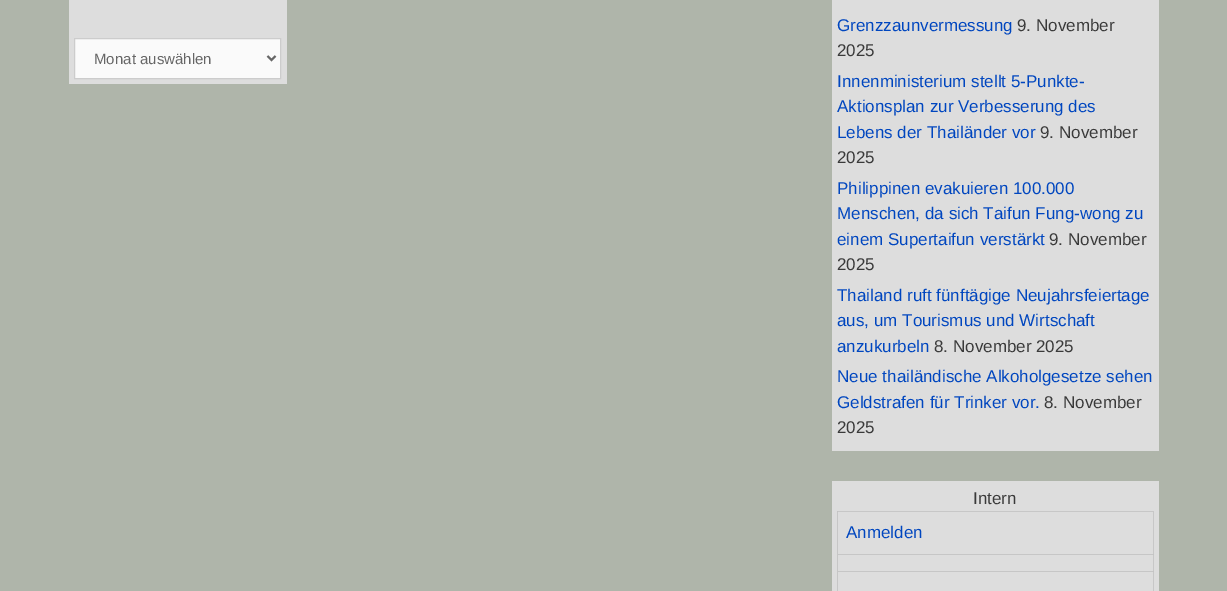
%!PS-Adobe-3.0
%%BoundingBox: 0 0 1227 591
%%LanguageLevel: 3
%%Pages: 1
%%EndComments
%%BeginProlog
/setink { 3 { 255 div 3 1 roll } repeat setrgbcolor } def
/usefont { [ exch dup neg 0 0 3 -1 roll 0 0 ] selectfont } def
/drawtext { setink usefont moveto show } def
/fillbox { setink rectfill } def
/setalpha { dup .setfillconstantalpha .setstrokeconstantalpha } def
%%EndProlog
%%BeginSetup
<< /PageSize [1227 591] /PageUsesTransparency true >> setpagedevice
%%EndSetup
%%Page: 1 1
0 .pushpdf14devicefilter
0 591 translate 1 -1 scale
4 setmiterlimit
0 0 1227 591 175 181 170 fillbox
69 0 218 84 221 221 221 fillbox
250 250 250 setink
74.5 38.5 moveto 280.5 38.5 lineto 280.5 78.5 lineto 74.5 78.5 lineto closepath gsave fill grestore
204 204 204 setink
stroke
102 102 102 setink
2 setlinewidth
267.5 56 moveto 271.5 60 lineto 275.5 56 lineto stroke
(Monat auswählen) 94 64 /LiberationSans-Regular 15 102 102 102 drawtext
832 0 327 451 221 221 221 fillbox
(Grenzzaunvermessung) 837 31 /LiberationSans-Regular 17 0 70 191 drawtext
(9. November) 1017 31 /LiberationSans-Regular 17 58 58 58 drawtext
(2025) 837 56 /LiberationSans-Regular 17 58 58 58 drawtext
(Innenministerium stellt 5-Punkte-) 837 87 /LiberationSans-Regular 17 0 70 191 drawtext
(Aktionsplan zur Verbesserung des) 837 112 /LiberationSans-Regular 17 0 70 191 drawtext
(Lebens der Thailänder vor) 837 138 /LiberationSans-Regular 17 0 70 191 drawtext
(9. November) 1040 138 /LiberationSans-Regular 17 58 58 58 drawtext
(2025) 837 163 /LiberationSans-Regular 17 58 58 58 drawtext
(Philippinen evakuieren 100.000) 837 194 /LiberationSans-Regular 17 0 70 191 drawtext
(Menschen, da sich Taifun Fung-wong zu) 837 219 /LiberationSans-Regular 17 0 70 191 drawtext
(einem Supertaifun verstärkt) 837 245 /LiberationSans-Regular 17 0 70 191 drawtext
(9. November) 1049 245 /LiberationSans-Regular 17 58 58 58 drawtext
(2025) 837 270 /LiberationSans-Regular 17 58 58 58 drawtext
(Thailand ruft fünftägige Neujahrsfeiertage) 837 301 /LiberationSans-Regular 17 0 70 191 drawtext
(aus, um Tourismus und Wirtschaft) 837 326 /LiberationSans-Regular 17 0 70 191 drawtext
(anzukurbeln) 837 352 /LiberationSans-Regular 17 0 70 191 drawtext
(8. November 2025) 934 352 /LiberationSans-Regular 17 58 58 58 drawtext
(Neue thailändische Alkoholgesetze sehen) 837 382 /LiberationSans-Regular 17 0 70 191 drawtext
(Geldstrafen für Trinker vor.) 837 408 /LiberationSans-Regular 17 0 70 191 drawtext
(8. November) 1044 408 /LiberationSans-Regular 17 58 58 58 drawtext
(2025) 837 433 /LiberationSans-Regular 17 58 58 58 drawtext
832 481 327 110 221 221 221 fillbox
(Intern) 973 504 /LiberationSans-Regular 17 58 58 58 drawtext
199 199 199 setink
837 511 moveto 1154 511 lineto 1154 512 lineto 838 512 lineto closepath fill
0.1 setalpha
0 0 0 setink
837 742 moveto 837 511 lineto 838 512 lineto 838 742 lineto closepath fill
1 setalpha
199 199 199 setink
1154 512 moveto 1154 555 lineto 1153 554 lineto 1153 512 lineto closepath fill
0.1 setalpha
0 0 0 setink
1154 555 moveto 838 555 lineto 838 554 lineto 1153 554 lineto closepath fill
1 setalpha
(Anmelden) 846 538 /LiberationSans-Regular 17 0 70 191 drawtext
199 199 199 setink
1154 555 moveto 1154 572 lineto 1153 571 lineto 1153 555 lineto closepath fill
0.1 setalpha
0 0 0 setink
1154 572 moveto 838 572 lineto 838 571 lineto 1153 571 lineto closepath fill
1 setalpha
199 199 199 setink
1154 572 moveto 1154 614 lineto 1153 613 lineto 1153 572 lineto closepath fill
.poppdf14devicefilter showpage
%%EOF
